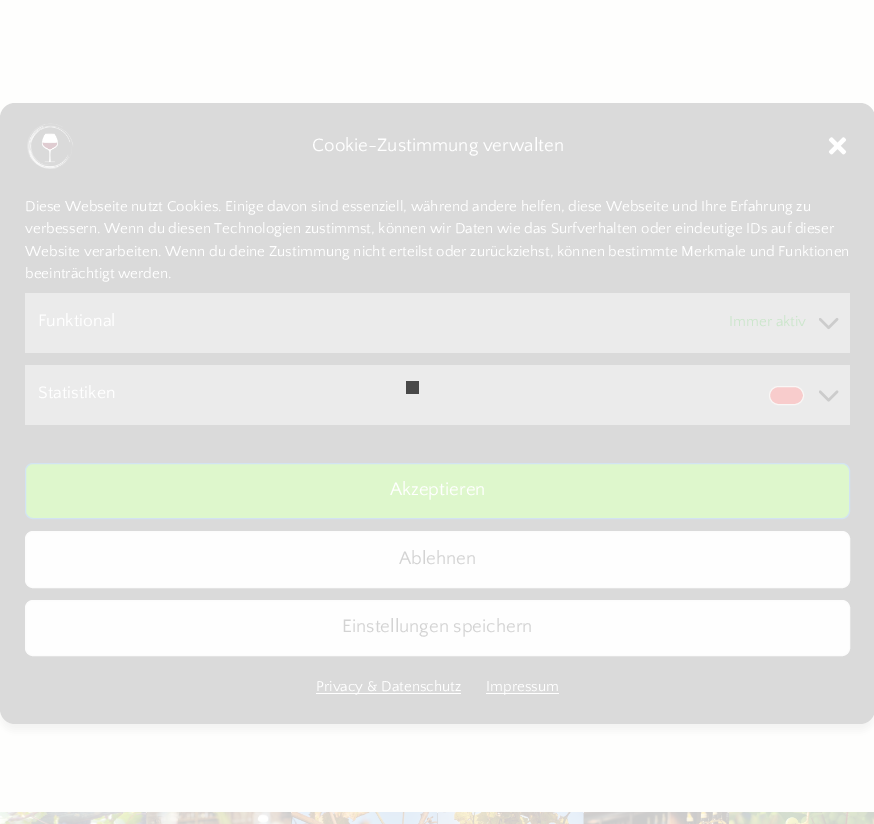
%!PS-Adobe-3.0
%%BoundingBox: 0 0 874 824
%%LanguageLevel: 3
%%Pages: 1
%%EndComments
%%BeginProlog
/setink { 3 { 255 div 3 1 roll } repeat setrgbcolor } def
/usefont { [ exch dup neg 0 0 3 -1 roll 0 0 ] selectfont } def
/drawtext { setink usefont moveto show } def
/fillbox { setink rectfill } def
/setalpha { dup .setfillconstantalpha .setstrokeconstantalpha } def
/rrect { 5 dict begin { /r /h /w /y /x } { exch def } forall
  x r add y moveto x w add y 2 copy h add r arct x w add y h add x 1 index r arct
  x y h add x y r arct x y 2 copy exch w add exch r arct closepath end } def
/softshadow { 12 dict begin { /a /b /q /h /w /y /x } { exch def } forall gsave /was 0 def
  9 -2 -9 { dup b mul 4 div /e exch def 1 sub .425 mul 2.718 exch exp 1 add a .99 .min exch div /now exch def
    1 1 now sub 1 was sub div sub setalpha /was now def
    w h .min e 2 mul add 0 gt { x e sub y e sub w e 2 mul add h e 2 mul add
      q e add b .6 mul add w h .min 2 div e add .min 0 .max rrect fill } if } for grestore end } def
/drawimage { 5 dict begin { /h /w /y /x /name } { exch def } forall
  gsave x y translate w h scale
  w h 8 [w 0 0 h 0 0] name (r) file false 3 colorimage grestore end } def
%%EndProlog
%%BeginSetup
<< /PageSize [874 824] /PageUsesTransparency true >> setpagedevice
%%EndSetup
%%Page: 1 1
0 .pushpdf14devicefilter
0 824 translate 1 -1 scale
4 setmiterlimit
0 0 874 824 254 254 253 fillbox
204 204 204 setink
0 110 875 621 15 4 0.23 softshadow
218 218 218 setink
0 103 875 621 15 rrect fill
(assets/img1.rgb) 27 123 47 46 drawimage
(Cookie-Zustimmung verwalten) 312 151 /QuattrocentoSans-Regular 18.75 255 255 255 drawtext
(assets/img2.rgb) 828 137 19 18 drawimage
(Diese Webseite nutzt Cookies. Einige davon sind essenziell, während andere helfen, diese Webseite und Ihre Erfahrung zu) 25 211 /QuattrocentoSans-Regular 15 255 255 255 drawtext
(verbessern. Wenn du diesen Technologien zustimmst, können wir Daten wie das Surfverhalten oder eindeutige IDs auf dieser) 25 233 /QuattrocentoSans-Regular 15 255 255 255 drawtext
(Website verarbeiten. Wenn du deine Zustimmung nicht erteilst oder zurückziehst, können bestimmte Merkmale und Funktionen) 25 256 /QuattrocentoSans-Regular 15 255 255 255 drawtext
(beeinträchtigt werden.) 25 278 /QuattrocentoSans-Regular 15 255 255 255 drawtext
25 293 825 60 235 235 235 fillbox
(Funktional) 38 326 /QuattrocentoSans-Regular 17.5 255 255 255 drawtext
(Immer aktiv) 729 326 /QuattrocentoSans-Regular 15 204 230 204 drawtext
(assets/img3.rgb) 819 317 20 13 drawimage
25 365 825 60 235 235 235 fillbox
(Statistiken) 38 398 /QuattrocentoSans-Regular 17.5 255 255 255 drawtext
248 204 204 setink
769.5 386.5 34 18 9 rrect gsave fill grestore
248 247 246 setink
stroke
(assets/img4.rgb) 819 390 20 12 drawimage
222 247 204 setink
25.5 463.5 824 55 7.5 rrect gsave fill grestore
210 227 242 setink
stroke
(Akzeptieren) 390 495 /QuattrocentoSans-Regular 18.75 255 255 255 drawtext
254 254 254 setink
25.5 531.5 824 56 7.5 rrect gsave fill grestore
252 252 252 setink
stroke
(Ablehnen) 399 564 /QuattrocentoSans-Regular 18.75 211 211 211 drawtext
254 254 254 setink
25.5 600.5 824 55 7.5 rrect gsave fill grestore
252 252 252 setink
stroke
(Einstellungen speichern) 342 632 /QuattrocentoSans-Regular 18.75 211 211 211 drawtext
316 693 145 1 255 255 255 fillbox
(Privacy & Datenschutz) 316 691 /QuattrocentoSans-Regular 15 255 255 255 drawtext
486 693 73 1 255 255 255 fillbox
(Impressum) 486 691 /QuattrocentoSans-Regular 15 255 255 255 drawtext
406 381 13 13 72 72 72 fillbox
146 813 583 11 211 211 211 fillbox
(assets/img5.rgb) 0 812 147 12 drawimage
(assets/img6.rgb) 146 812 146 12 drawimage
(assets/img7.rgb) 291 812 147 12 drawimage
(assets/img8.rgb) 437 812 147 12 drawimage
(assets/img9.rgb) 583 812 146 12 drawimage
(assets/img10.rgb) 728 812 146 12 drawimage
.poppdf14devicefilter showpage
%%EOF
